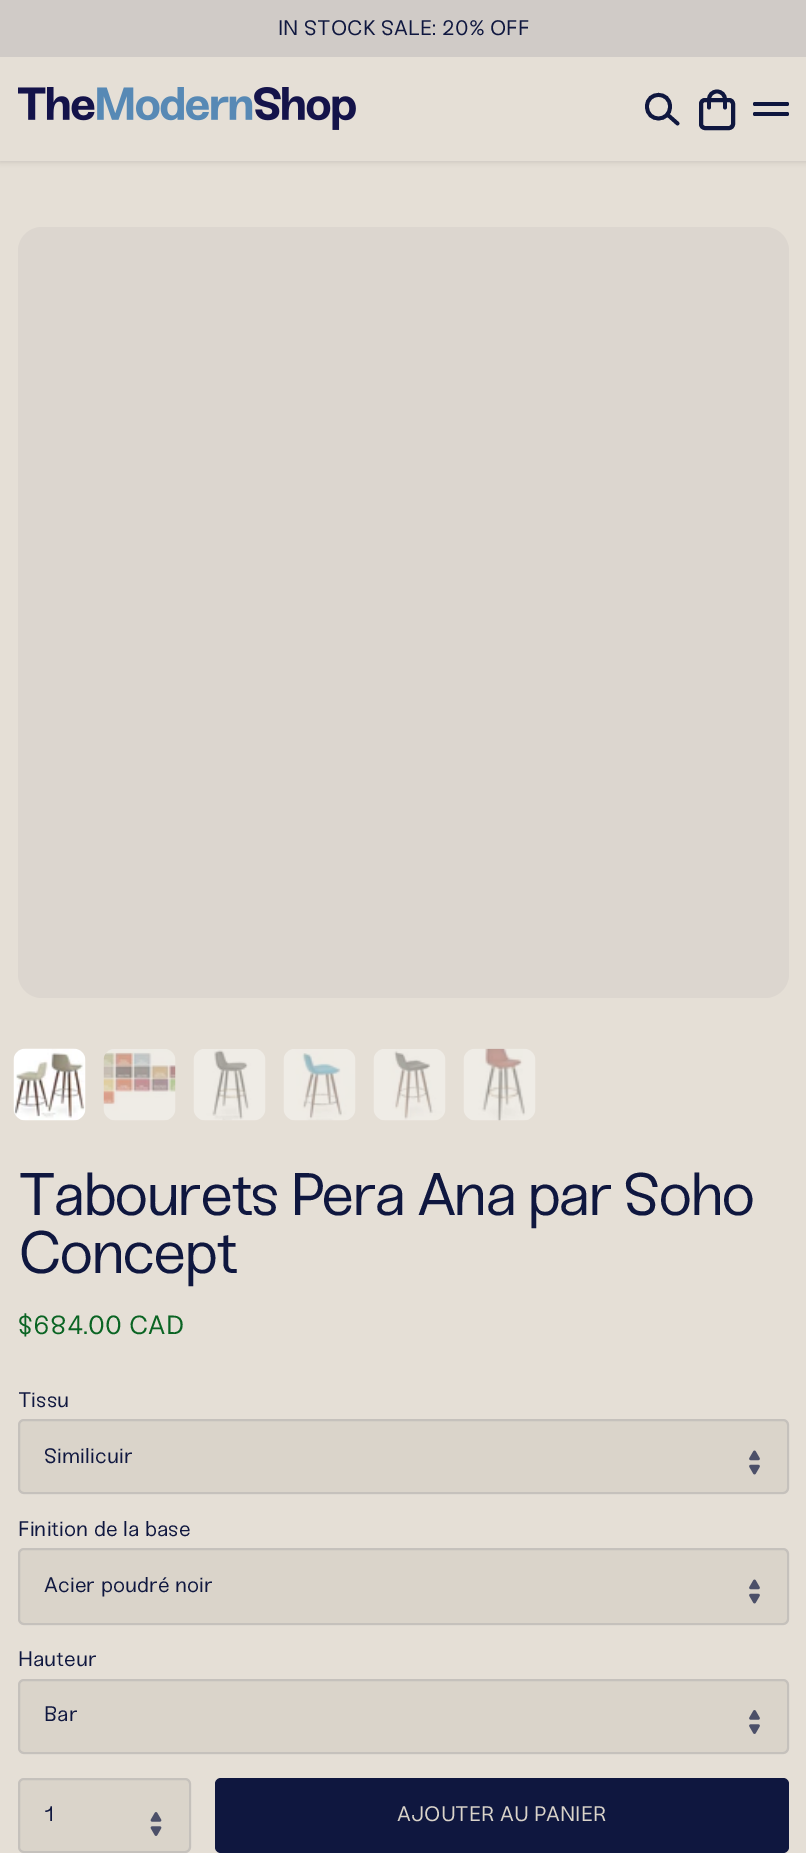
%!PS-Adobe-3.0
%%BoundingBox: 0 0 806 1853
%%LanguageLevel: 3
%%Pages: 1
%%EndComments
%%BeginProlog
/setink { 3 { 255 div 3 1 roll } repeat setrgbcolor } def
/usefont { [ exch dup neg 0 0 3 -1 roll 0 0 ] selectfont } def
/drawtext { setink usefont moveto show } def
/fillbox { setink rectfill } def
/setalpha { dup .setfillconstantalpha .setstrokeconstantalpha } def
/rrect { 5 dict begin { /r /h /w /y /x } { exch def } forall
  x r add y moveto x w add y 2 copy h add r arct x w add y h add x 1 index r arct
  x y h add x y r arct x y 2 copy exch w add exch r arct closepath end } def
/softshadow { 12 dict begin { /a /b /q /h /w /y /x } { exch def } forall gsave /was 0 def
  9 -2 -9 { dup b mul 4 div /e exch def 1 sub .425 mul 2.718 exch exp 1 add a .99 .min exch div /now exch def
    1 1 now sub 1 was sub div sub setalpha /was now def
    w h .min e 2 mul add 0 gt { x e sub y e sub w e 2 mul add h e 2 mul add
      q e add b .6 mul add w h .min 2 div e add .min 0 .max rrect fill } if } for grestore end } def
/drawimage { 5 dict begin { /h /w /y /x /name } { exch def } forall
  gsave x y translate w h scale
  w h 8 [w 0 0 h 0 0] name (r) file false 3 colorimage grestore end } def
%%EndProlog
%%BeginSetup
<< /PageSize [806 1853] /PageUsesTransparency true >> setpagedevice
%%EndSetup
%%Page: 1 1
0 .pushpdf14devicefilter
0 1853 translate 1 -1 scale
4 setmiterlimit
0 0 806 1853 229 223 214 fillbox
114 111 107 setink
0 2 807 160 0 3 0.25 softshadow
0 57 806 104 229 223 214 fillbox
0 0 806 57 208 203 199 fillbox
(IN STOCK SALE: 20% OFF) 278 35 /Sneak-Regular 21 15 23 63 drawtext
(assets/img1.rgb) 18 87 338 43 drawimage
3.8 setlinewidth
670 106.5 moveto 670 122.5 647 122.5 647 106.5 curveto 647 91 670 91 670 106.5 curveto closepath stroke
3.7 setlinewidth
1 setlinecap
1 setlinejoin
668.5 115.5 moveto 677.5 123.5 lineto stroke
4 setlinewidth
0 setlinecap
0 setlinejoin
701 100 32 28 4 rrect stroke
3.8 setlinewidth
1 setlinecap
1 setlinejoin
709 107.5 moveto 709 99.5 lineto 709 95 712.5 91.5 717 91.5 curveto 721.5 91.5 725 95 725 99.5 curveto 725 107.5 lineto stroke
753 102 36 4 2 rrect fill
753 112 36 4 2 rrect fill
220 214 207 setink
18 227 771 771 24 rrect fill
(assets/img2.rgb) 13 1048 73 73 drawimage
(assets/img3.rgb) 103 1049 73 72 drawimage
(assets/img4.rgb) 193 1049 73 72 drawimage
(assets/img5.rgb) 283 1049 73 72 drawimage
(assets/img6.rgb) 373 1049 73 72 drawimage
(assets/img7.rgb) 463 1048 73 73 drawimage
/Sneak-Regular 60 usefont
15 23 63 setink
18 1215 moveto -3 0 (Tabourets Pera Ana par Soho) ashow
18 1273 moveto -3 0 (Concept) ashow
($684.00 CAD) 18 1334 /Sneak-Regular 26.25 10 100 35 drawtext
(Tissu) 18 1407 /Sneak-Regular 21 15 23 63 drawtext
218 212 202 setink
18 1419 771 75 6 rrect fill
0.1 setalpha
15 23 63 setink
2 setlinewidth
0 setlinecap
0 setlinejoin
19 1420 769 73 5 rrect stroke
1 setalpha
(Similicuir) 44 1463 /Sneak-Regular 21 15 23 63 drawtext
(assets/img8.rgb) 749 1450 11 25 drawimage
(Finition de la base) 18 1536 /Sneak-Regular 21 15 23 63 drawtext
218 212 202 setink
18 1548 771 77 6 rrect fill
0.1 setalpha
15 23 63 setink
19 1549 769 75 5 rrect stroke
1 setalpha
(Acier poudré noir) 44 1592 /Sneak-Regular 21 15 23 63 drawtext
(assets/img8.rgb) 749 1579 11 25 drawimage
(Hauteur) 18 1666 /Sneak-Regular 21 15 23 63 drawtext
218 212 202 setink
18 1679 771 75 6 rrect fill
0.1 setalpha
15 23 63 setink
19 1680 769 73 5 rrect stroke
1 setalpha
(Bar) 44 1721 /Sneak-Regular 21 15 23 63 drawtext
(assets/img9.rgb) 749 1710 11 24 drawimage
218 212 202 setink
18 1778 173 75 6 rrect fill
0.1 setalpha
15 23 63 setink
19 1779 171 73 5 rrect stroke
1 setalpha
(1) 44 1821 /Sneak-Regular 21 15 23 63 drawtext
(assets/img10.rgb) 150 1812 12 24 drawimage
215 1778 574 75 6 rrect fill
(AJOUTER AU PANIER) 397 1821 /Sneak-Regular 21 218 212 202 drawtext
.poppdf14devicefilter showpage
%%EOF
